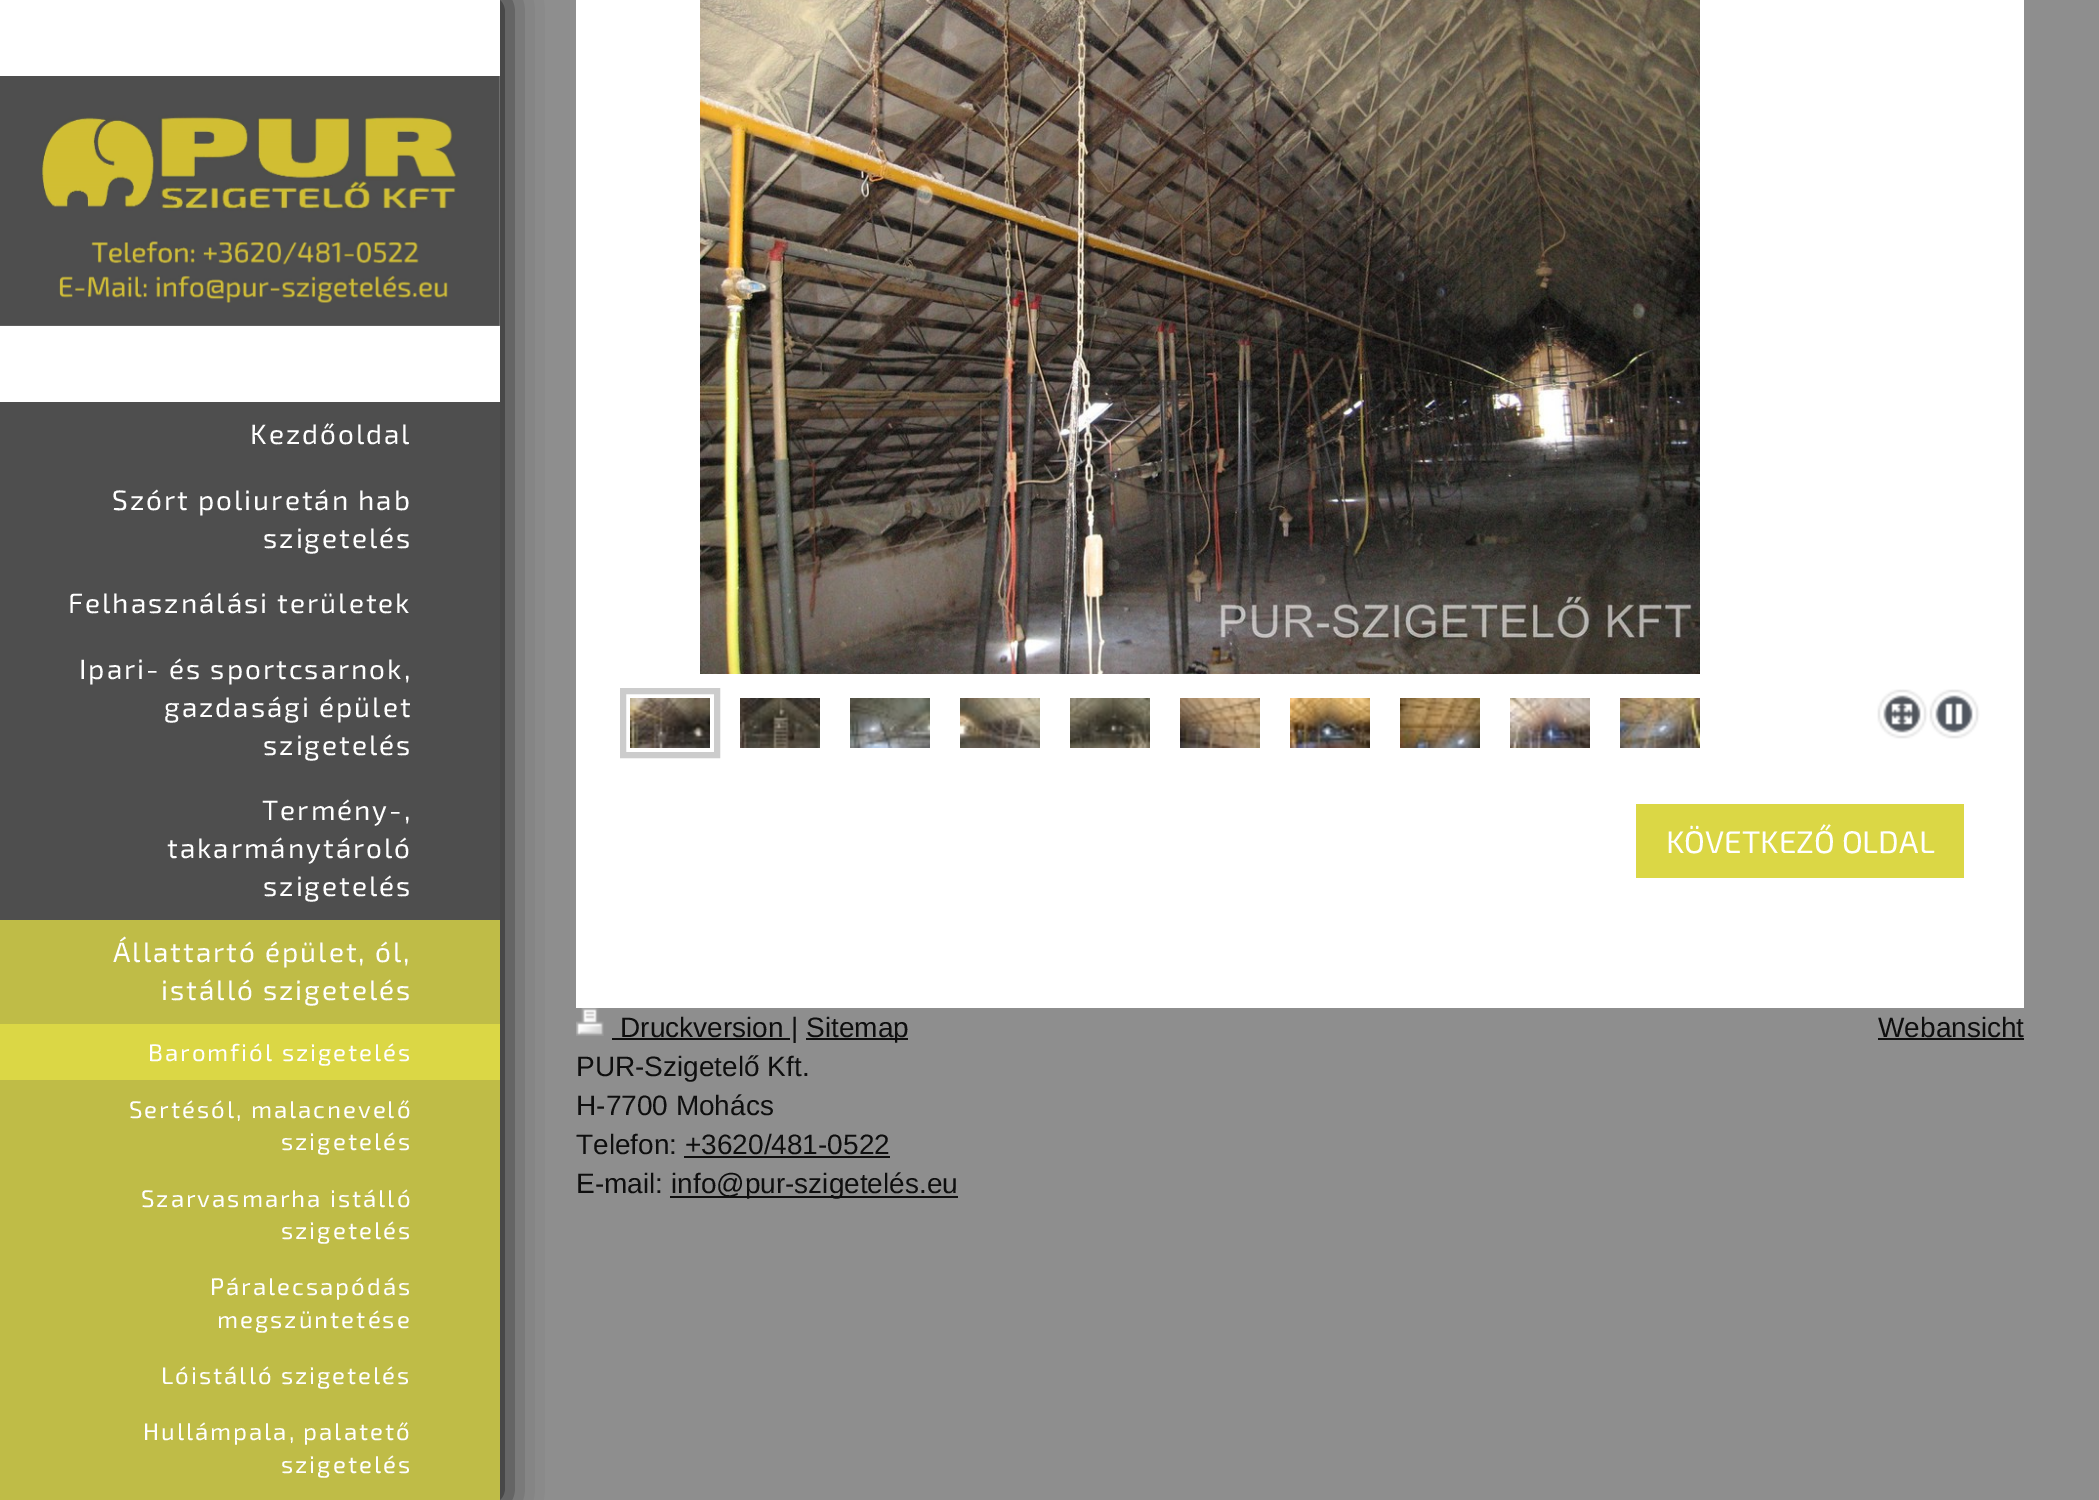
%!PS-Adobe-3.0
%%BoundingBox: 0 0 2099 1500
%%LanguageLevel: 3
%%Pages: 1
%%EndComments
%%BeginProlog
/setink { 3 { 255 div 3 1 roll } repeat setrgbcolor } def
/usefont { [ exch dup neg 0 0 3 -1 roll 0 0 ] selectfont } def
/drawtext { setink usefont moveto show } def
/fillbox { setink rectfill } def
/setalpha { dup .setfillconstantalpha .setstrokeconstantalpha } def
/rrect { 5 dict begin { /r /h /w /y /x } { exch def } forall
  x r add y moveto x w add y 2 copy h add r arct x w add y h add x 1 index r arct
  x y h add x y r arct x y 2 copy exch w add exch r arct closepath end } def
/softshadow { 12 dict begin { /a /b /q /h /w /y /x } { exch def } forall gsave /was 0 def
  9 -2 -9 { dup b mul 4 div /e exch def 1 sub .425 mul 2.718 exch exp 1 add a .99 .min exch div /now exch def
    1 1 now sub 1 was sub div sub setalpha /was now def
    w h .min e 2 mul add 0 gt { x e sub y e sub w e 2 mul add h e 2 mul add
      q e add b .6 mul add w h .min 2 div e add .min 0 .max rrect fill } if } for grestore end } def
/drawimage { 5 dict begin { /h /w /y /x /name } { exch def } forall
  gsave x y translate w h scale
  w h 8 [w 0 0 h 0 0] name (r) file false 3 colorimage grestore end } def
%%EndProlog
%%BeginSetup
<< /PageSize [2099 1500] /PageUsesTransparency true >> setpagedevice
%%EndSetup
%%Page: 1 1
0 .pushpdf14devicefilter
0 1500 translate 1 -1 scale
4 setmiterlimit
0 0 2099 1500 142 142 142 fillbox
0 0 0 setink
0 0 500 1500 0 20 1 softshadow
0 0 500 402 255 255 255 fillbox
(assets/img1.rgb) 0 76 500 250 drawimage
0 402 500 518 78 78 78 fillbox
/Exo2-Regular 28 usefont
255 255 255 setink
250 444 moveto 2 0 (Kezdőoldal) ashow
112 510 moveto 2 0 (Szórt poliuretán hab) ashow
263 548 moveto 2 0 (szigetelés) ashow
68 613 moveto 2 0 (Felhasználási területek) ashow
79 679 moveto 2 0 (Ipari- és sportcsarnok,) ashow
164 717 moveto 2 0 (gazdasági épület) ashow
263 755 moveto 2 0 (szigetelés) ashow
262 820 moveto 2 0 (Termény-,) ashow
167 858 moveto 2 0 (takarmánytároló) ashow
263 896 moveto 2 0 (szigetelés) ashow
0 920 500 104 191 188 71 fillbox
255 255 255 setink
113 962 moveto 2 0 (Állattartó épület, ól,) ashow
161 1000 moveto 2 0 (istálló szigetelés) ashow
0 1080 500 420 191 188 71 fillbox
0 1024 500 56 219 215 69 fillbox
/Exo2-Regular 24 usefont
255 255 255 setink
148 1061 moveto 2 0 (Baromfiól szigetelés) ashow
129 1118 moveto 2 0 (Sertésól, malacnevelő) ashow
281 1150 moveto 2 0 (szigetelés) ashow
141 1207 moveto 2 0 (Szarvasmarha istálló) ashow
281 1239 moveto 2 0 (szigetelés) ashow
210 1295 moveto 2 0 (Páralecsapódás) ashow
217 1328 moveto 2 0 (megszüntetése) ashow
161 1384 moveto 2 0 (Lóistálló szigetelés) ashow
143 1440 moveto 2 0 (Hullámpala, palatető) ashow
281 1473 moveto 2 0 (szigetelés) ashow
576 0 1448 1008 255 255 255 fillbox
(assets/img2.rgb) 700 0 1000 674 drawimage
204 204 204 setink
6 setlinewidth
623 691 94 64 rectstroke
(assets/img3.rgb) 630 698 80 50 drawimage
(assets/img4.rgb) 740 698 80 50 drawimage
(assets/img5.rgb) 850 698 80 50 drawimage
(assets/img6.rgb) 960 698 80 50 drawimage
(assets/img7.rgb) 1070 698 80 50 drawimage
(assets/img8.rgb) 1180 698 80 50 drawimage
(assets/img9.rgb) 1290 698 80 50 drawimage
(assets/img10.rgb) 1400 698 80 50 drawimage
(assets/img11.rgb) 1510 698 80 50 drawimage
(assets/img12.rgb) 1620 698 80 50 drawimage
(assets/img13.rgb) 1877 689 51 50 drawimage
(assets/img14.rgb) 1929 689 51 50 drawimage
1636 804 328 74 219 215 69 fillbox
(KÖVETKEZŐ OLDAL) 1666 853 /Exo2-Regular 31.25 255 255 255 drawtext
(assets/img15.rgb) 576 1008 28 28 drawimage
612 1038 178 2 14 14 14 fillbox
(Druckversion |) 620 1037 /LiberationSans-Regular 28 14 14 14 drawtext
806 1038 102 2 14 14 14 fillbox
(Sitemap) 806 1037 /LiberationSans-Regular 28 14 14 14 drawtext
(PUR-Szigetelő Kft.) 576 1076 /LiberationSans-Regular 28 14 14 14 drawtext
(H-7700 Mohács) 576 1115 /LiberationSans-Regular 28 14 14 14 drawtext
(Telefon: +3620/481-0522) 576 1154 /LiberationSans-Regular 28 14 14 14 drawtext
684 1156 206 2 14 14 14 fillbox
(E-mail:) 576 1193 /LiberationSans-Regular 28 14 14 14 drawtext
670 1196 288 2 14 14 14 fillbox
(info@pur-szigetelés.eu) 671 1193 /LiberationSans-Regular 28 14 14 14 drawtext
(Webansicht) 1878 1037 /LiberationSans-Regular 28 14 14 14 drawtext
1878 1038 146 2 14 14 14 fillbox
.poppdf14devicefilter showpage
%%EOF
